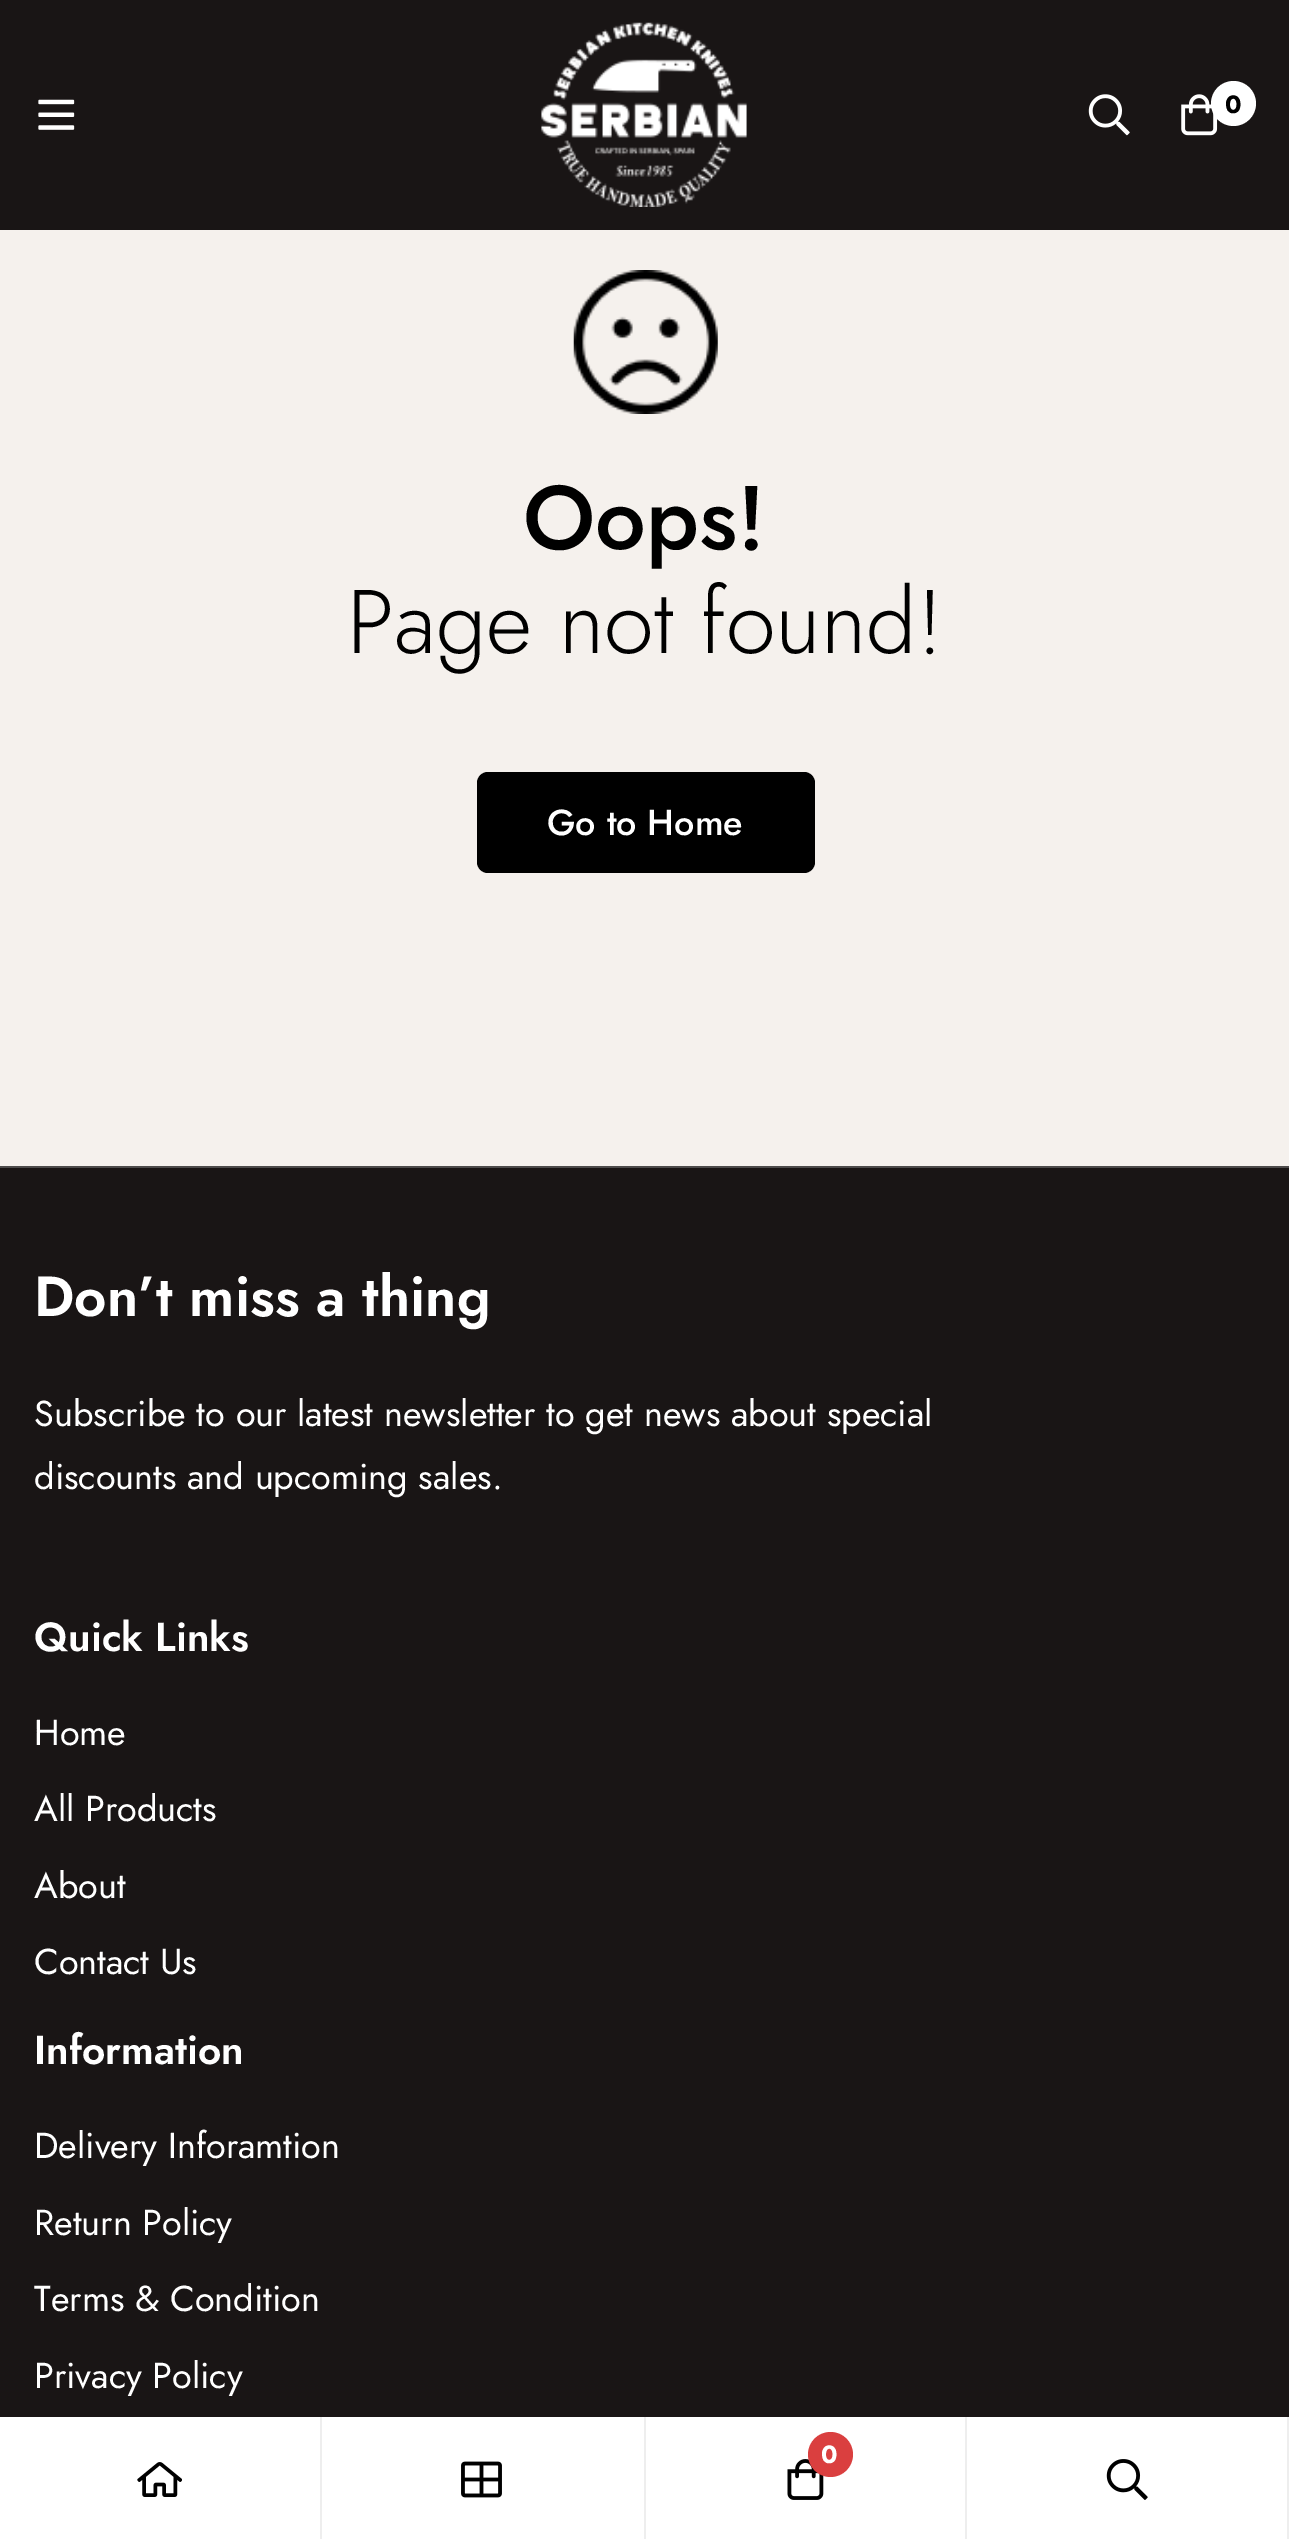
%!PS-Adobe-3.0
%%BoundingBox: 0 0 1289 2539
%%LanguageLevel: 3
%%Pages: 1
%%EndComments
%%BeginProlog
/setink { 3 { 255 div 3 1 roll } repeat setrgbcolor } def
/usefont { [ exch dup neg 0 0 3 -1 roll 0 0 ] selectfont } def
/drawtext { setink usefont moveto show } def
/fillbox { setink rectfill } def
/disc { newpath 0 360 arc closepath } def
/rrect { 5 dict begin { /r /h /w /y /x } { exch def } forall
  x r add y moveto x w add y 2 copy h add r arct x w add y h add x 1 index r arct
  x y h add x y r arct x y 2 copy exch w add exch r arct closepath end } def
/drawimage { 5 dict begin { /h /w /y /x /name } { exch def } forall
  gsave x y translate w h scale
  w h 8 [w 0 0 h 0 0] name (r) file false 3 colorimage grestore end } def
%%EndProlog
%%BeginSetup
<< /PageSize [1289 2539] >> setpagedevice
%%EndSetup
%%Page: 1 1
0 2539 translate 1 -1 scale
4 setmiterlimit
0 0 1289 2539 245 241 237 fillbox
0 0 1289 230 25 21 21 fillbox
(assets/img1.rgb) 38 99 37 31 drawimage
(assets/img2.rgb) 541 22 206 185 drawimage
(assets/img3.rgb) 1088 94 42 42 drawimage
(assets/img4.rgb) 1181 94 37 42 drawimage
255 255 255 setink
1233.5 103.5 22.5 disc fill
(0) 1225 113 /Jost-Bold 25 0 0 0 drawtext
(assets/img5.rgb) 573 270 145 144 drawimage
(Oops!) 523 549 /Jost-Medium 90 0 0 0 drawtext
(Page not found!) 347 653 /Jost-Light 90 0 0 0 drawtext
477 772 338 101 11 rrect fill
(Go to Home) 547 835 /Jost-Medium 36 255 255 255 drawtext
0 1168 1289 1249 25 21 21 fillbox
0 1166 1289 2 77 75 75 fillbox
(Don’t miss a thing) 34 1316 /Jost-SemiBold 56.25 255 255 255 drawtext
(Subscribe to our latest newsletter to get news about special) 34 1426 /Jost-Regular 36 255 255 255 drawtext
(discounts and upcoming sales.) 34 1489 /Jost-Regular 36 255 255 255 drawtext
(Quick Links) 34 1651 /Jost-SemiBold 40.5 255 255 255 drawtext
(Home) 34 1745 /Jost-Regular 36 255 255 255 drawtext
(All Products) 34 1821 /Jost-Regular 36 255 255 255 drawtext
(About) 34 1898 /Jost-Regular 36 255 255 255 drawtext
(Contact Us) 34 1974 /Jost-Regular 36 255 255 255 drawtext
(Information) 34 2064 /Jost-SemiBold 40.5 255 255 255 drawtext
(Delivery Inforamtion) 34 2158 /Jost-Regular 36 255 255 255 drawtext
(Return Policy) 34 2235 /Jost-Regular 36 255 255 255 drawtext
(Terms & Condition) 34 2311 /Jost-Regular 36 255 255 255 drawtext
(Privacy Policy) 34 2388 /Jost-Regular 36 255 255 255 drawtext
0 2417 1287 122 255 255 255 fillbox
320 2417 2 122 238 238 238 fillbox
(assets/img6.rgb) 137 2462 45 35 drawimage
644 2417 2 122 238 238 238 fillbox
(assets/img7.rgb) 461 2461 41 37 drawimage
965 2417 2 122 238 238 238 fillbox
(assets/img8.rgb) 787 2459 37 41 drawimage
218 63 63 setink
830.5 2454.5 22.5 disc fill
(0) 821 2463 /Jost-Bold 25 255 255 255 drawtext
1287 2417 2 122 238 238 238 fillbox
(assets/img9.rgb) 1106 2459 42 41 drawimage
showpage
%%EOF
